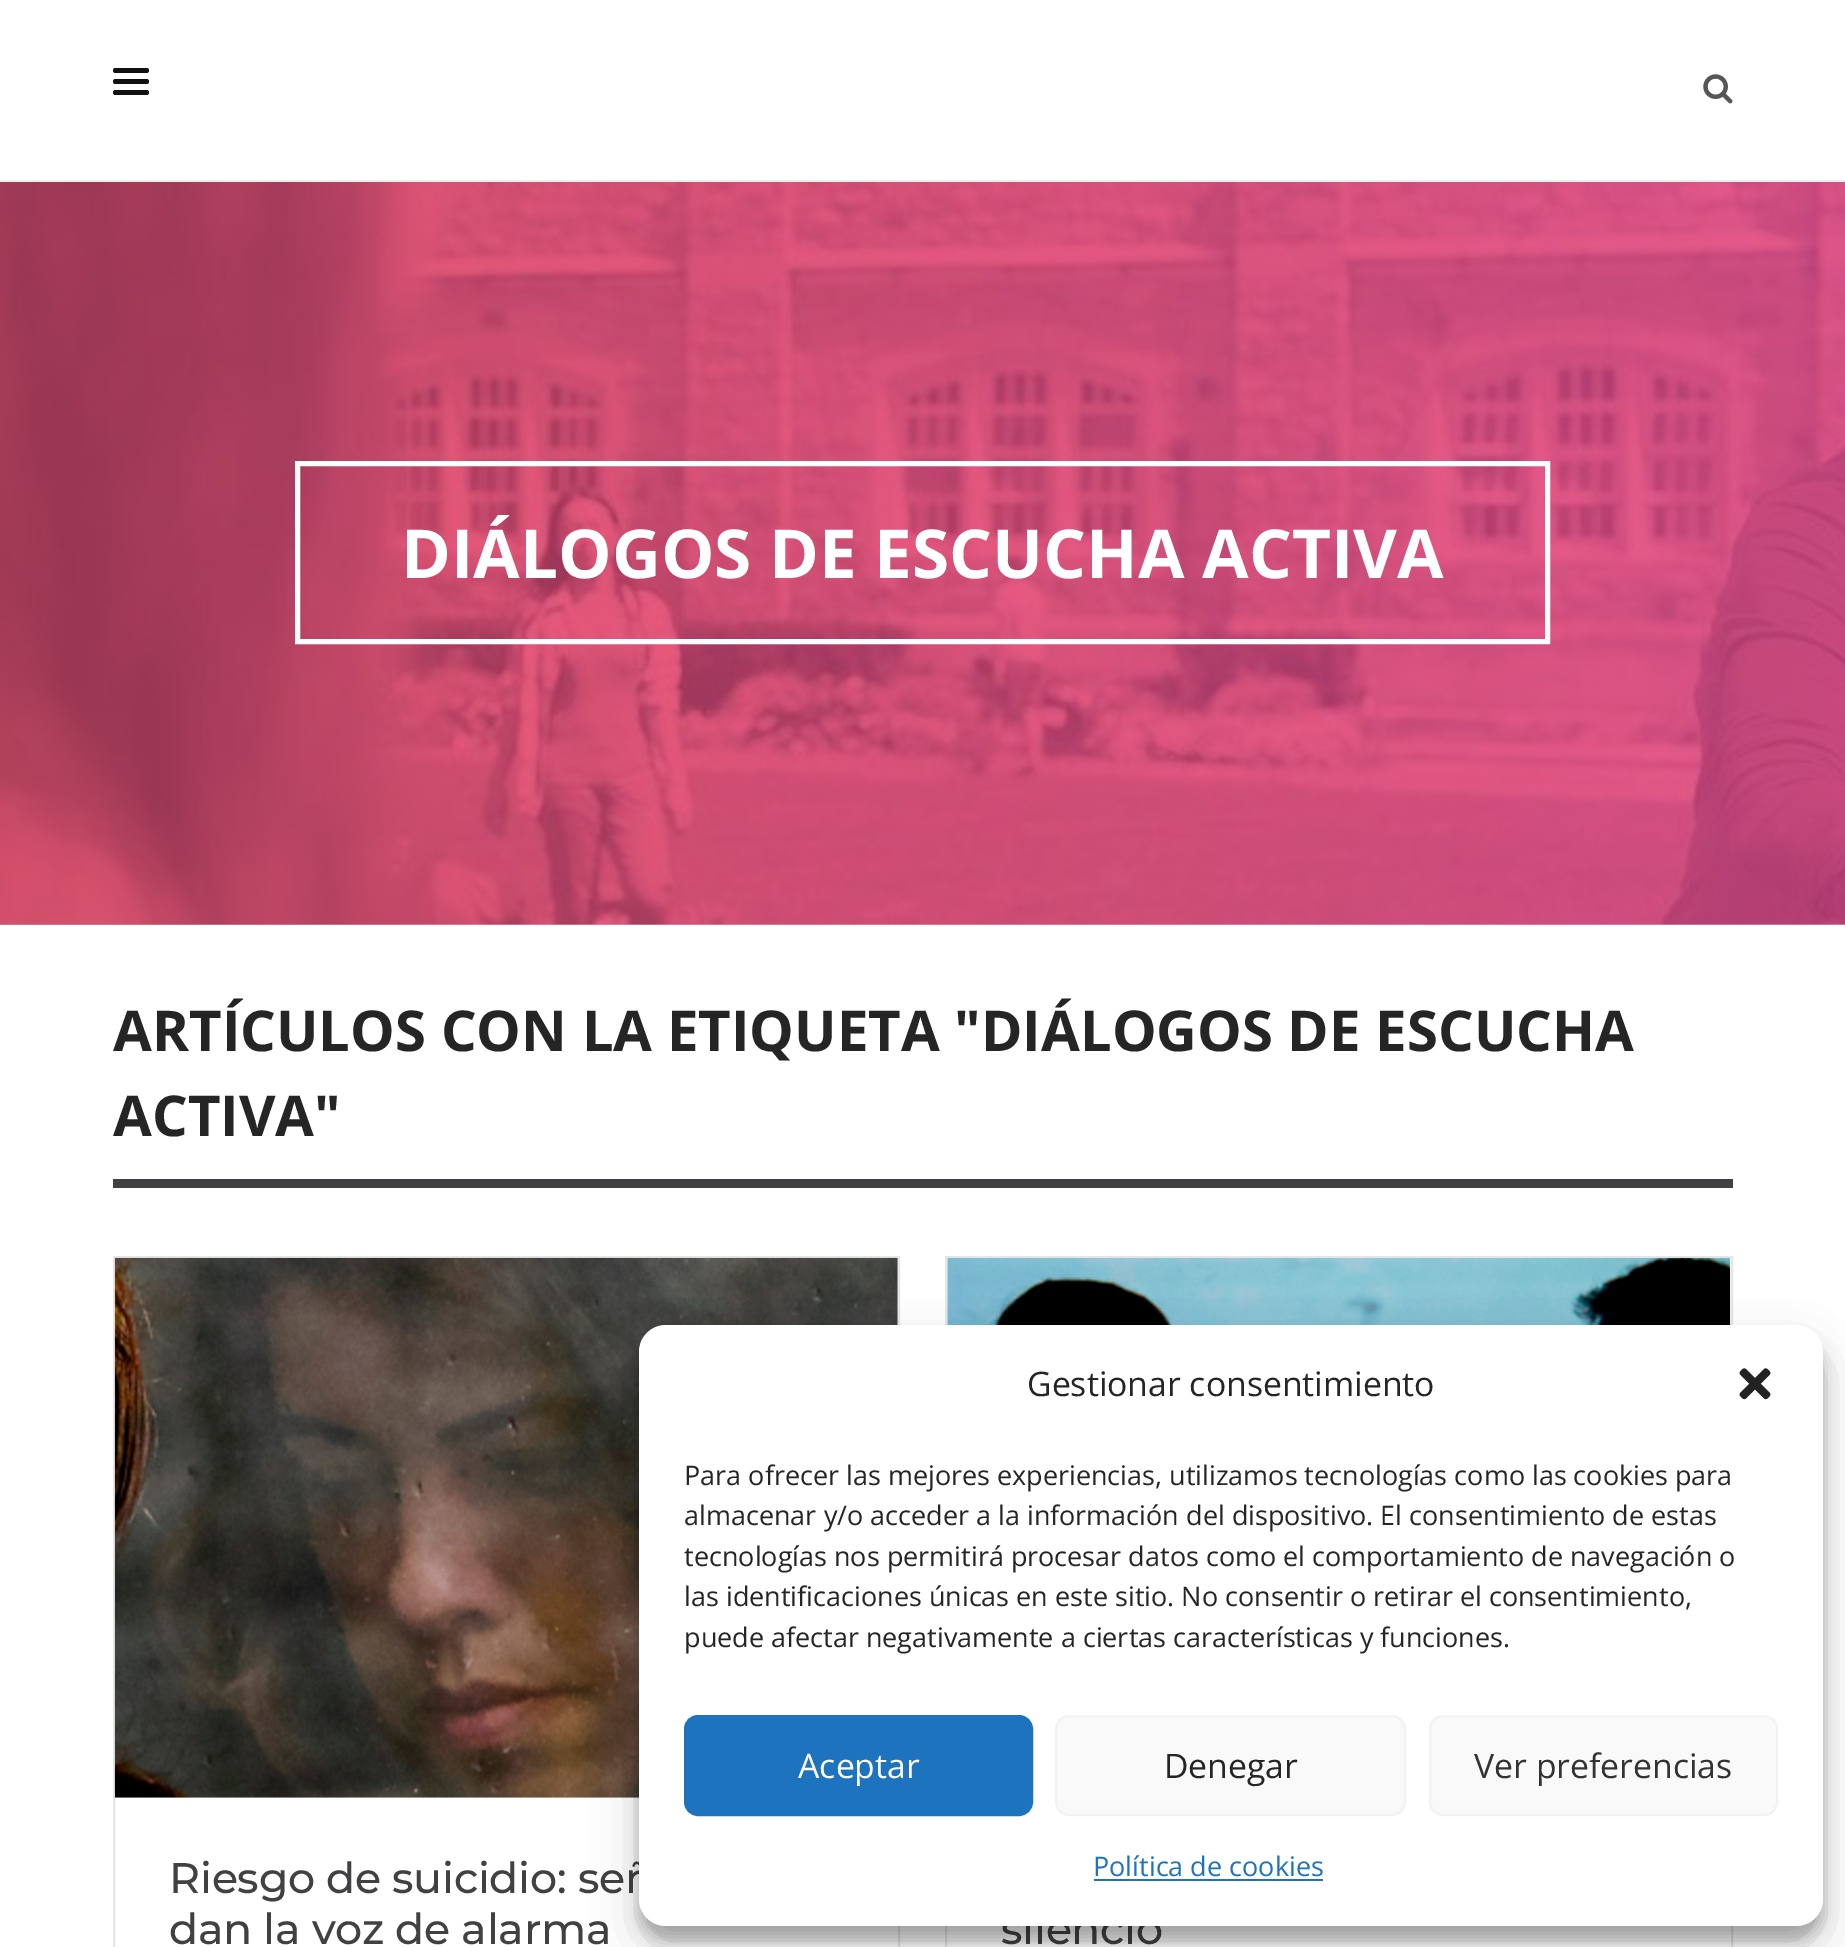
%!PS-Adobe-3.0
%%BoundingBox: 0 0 1845 1947
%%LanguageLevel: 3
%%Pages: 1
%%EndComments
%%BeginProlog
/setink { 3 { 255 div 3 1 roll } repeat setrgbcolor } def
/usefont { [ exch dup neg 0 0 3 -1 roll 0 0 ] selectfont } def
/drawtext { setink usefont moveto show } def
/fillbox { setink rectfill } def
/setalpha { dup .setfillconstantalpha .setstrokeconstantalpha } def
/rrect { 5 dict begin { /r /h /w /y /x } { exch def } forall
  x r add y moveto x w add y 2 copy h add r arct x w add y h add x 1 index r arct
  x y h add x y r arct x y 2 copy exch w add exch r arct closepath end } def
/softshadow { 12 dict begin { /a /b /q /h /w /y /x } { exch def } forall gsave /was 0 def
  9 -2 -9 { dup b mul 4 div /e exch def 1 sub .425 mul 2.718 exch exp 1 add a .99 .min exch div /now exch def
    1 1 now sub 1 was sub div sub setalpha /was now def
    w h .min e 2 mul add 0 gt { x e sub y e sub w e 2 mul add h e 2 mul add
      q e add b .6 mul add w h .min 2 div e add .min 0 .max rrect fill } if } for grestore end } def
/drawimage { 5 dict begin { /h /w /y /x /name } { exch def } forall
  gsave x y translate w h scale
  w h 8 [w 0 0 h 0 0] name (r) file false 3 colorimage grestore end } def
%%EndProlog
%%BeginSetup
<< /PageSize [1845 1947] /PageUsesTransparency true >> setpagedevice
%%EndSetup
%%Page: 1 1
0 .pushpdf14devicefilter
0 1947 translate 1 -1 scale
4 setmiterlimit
0 0 1845 1947 255 255 255 fillbox
0 180 1845 2 238 238 238 fillbox
17 17 17 setink
113 79 36 5 2.5 rrect fill
113 68 36 5 2.5 rrect fill
113 90 36 5 2.5 rrect fill
(assets/img1.rgb) 1703 74 30 30 drawimage
(assets/img2.rgb) 0 182 1845 743 drawimage
255 255 255 setink
5 setlinewidth
297.5 463.5 1250 178 rectstroke
(DIÁLOGOS DE ESCUCHA ACTIVA) 401 578 /OpenSans-Bold 67.5 255 255 255 drawtext
113 1179 1620 9 65 64 66 fillbox
(ARTÍCULOS CON LA ETIQUETA "DIÁLOGOS DE ESCUCHA) 113 1051 /OpenSans-Bold 56.25 37 37 37 drawtext
(ACTIVA") 113 1136 /OpenSans-Bold 56.25 37 37 37 drawtext
229 231 231 setink
2 setlinewidth
114 1257 785 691 rectstroke
(assets/img3.rgb) 114 1257 784 541 drawimage
/Montserrat-Medium 42.75 usefont
65 64 66 setink
169 1893 moveto -0.25 0 (Riesgo de suicidio: señ) ashow
169 1944 moveto -0.25 0 (dan la voz de alarma) ashow
229 231 231 setink
946 1257 786 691 rectstroke
(assets/img4.rgb) 947 1257 784 68 drawimage
65 64 66 setink
1001 1944 moveto -0.25 0 (silencio) ashow
0 0 0 setink
639 1339 1184 601 27 7 0.23 softshadow
639 1348 1184 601 27 22.5 0.19 softshadow
255 255 255 setink
639 1325 1184 601 27 rrect fill
(Gestionar consentimiento) 1027 1396 /OpenSans-Regular 33.75 37 37 37 drawtext
(assets/img5.rgb) 1739 1368 32 32 drawimage
(Para ofrecer las mejores experiencias, utilizamos tecnologías como las cookies para) 684 1485 /OpenSans-Regular 27 37 37 37 drawtext
(almacenar y/o acceder a la información del dispositivo. El consentimiento de estas) 684 1525 /OpenSans-Regular 27 37 37 37 drawtext
(tecnologías nos permitirá procesar datos como el comportamiento de navegación o) 684 1566 /OpenSans-Regular 27 37 37 37 drawtext
(las identificaciones únicas en este sitio. No consentir o retirar el consentimiento,) 684 1606 /OpenSans-Regular 27 37 37 37 drawtext
(puede afectar negativamente a ciertas características y funciones.) 684 1647 /OpenSans-Regular 27 37 37 37 drawtext
30 115 190 setink
685 1716 347 99 13 rrect gsave fill grestore
stroke
(Aceptar) 798 1778 /OpenSans-Regular 33.75 255 255 255 drawtext
249 249 249 setink
1056 1716 349 99 13 rrect gsave fill grestore
242 242 242 setink
stroke
(Denegar) 1164 1778 /OpenSans-Regular 33.75 37 37 37 drawtext
249 249 249 setink
1430 1716 347 99 13 rrect gsave fill grestore
242 242 242 setink
stroke
(Ver preferencias) 1474 1778 /OpenSans-Regular 33.75 51 51 51 drawtext
(Política de cookies) 1093 1876 /OpenSans-Regular 27 30 115 190 drawtext
1094 1879 229 2 30 115 190 fillbox
.poppdf14devicefilter showpage
%%EOF
